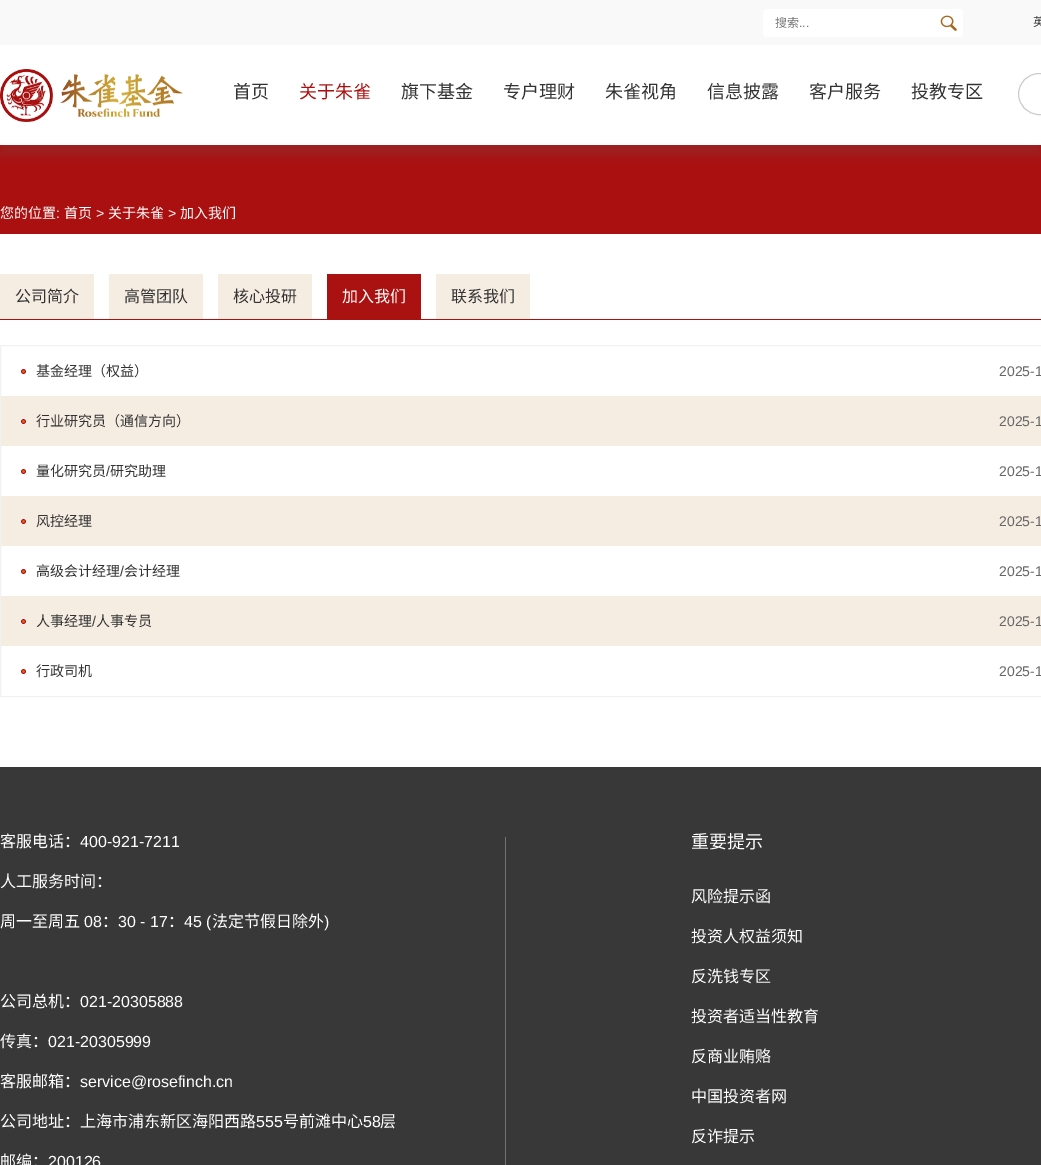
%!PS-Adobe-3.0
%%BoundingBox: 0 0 1041 1165
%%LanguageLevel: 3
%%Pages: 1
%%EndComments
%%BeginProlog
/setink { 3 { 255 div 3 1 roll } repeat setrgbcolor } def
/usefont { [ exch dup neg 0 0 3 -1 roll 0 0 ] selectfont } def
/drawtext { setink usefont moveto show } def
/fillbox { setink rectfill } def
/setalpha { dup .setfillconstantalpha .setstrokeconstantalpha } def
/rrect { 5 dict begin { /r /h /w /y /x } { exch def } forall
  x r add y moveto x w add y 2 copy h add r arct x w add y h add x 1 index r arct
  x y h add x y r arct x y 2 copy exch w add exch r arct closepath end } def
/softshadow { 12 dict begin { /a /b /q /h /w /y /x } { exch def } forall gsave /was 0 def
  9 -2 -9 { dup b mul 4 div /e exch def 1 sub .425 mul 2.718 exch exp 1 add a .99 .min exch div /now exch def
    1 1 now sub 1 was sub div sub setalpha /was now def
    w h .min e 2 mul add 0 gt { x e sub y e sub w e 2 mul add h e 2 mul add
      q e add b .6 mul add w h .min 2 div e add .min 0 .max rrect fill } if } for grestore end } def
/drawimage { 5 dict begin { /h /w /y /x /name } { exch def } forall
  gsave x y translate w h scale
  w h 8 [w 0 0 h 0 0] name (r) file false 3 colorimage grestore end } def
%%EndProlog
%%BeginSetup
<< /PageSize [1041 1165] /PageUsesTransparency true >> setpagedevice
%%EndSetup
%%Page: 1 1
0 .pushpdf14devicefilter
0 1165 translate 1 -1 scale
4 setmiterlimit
0 0 1041 1165 255 255 255 fillbox
0 145 1041 89 170 16 16 fillbox
100 100 100 setink
0 10 1041 145 0 5 0.2 softshadow
0 45 1041 100 255 255 255 fillbox
0 0 1041 45 249 249 249 fillbox
255 255 255 setink
763 9 200 28 4 rrect fill
(搜索) 775 27 /NotoSansCJKSC-Regular 12 117 117 117 drawtext
(...) 799 27 /LiberationSans-Regular 12 117 117 117 drawtext
(assets/img1.rgb) 940 15 17 16 drawimage
(英) 1033 26 /NotoSansCJKSC-Regular 12 51 51 51 drawtext
(assets/img2.rgb) 0 69 183 53 drawimage
(首页) 233 98 /NotoSansCJKSC-Regular 18 51 51 51 drawtext
(关于朱雀) 299 98 /NotoSansCJKSC-Regular 18 170 17 17 drawtext
(旗下基金) 401 98 /NotoSansCJKSC-Regular 18 51 51 51 drawtext
(专户理财) 503 98 /NotoSansCJKSC-Regular 18 51 51 51 drawtext
(朱雀视角) 605 98 /NotoSansCJKSC-Regular 18 51 51 51 drawtext
(信息披露) 707 98 /NotoSansCJKSC-Regular 18 51 51 51 drawtext
(客户服务) 809 98 /NotoSansCJKSC-Regular 18 51 51 51 drawtext
(投教专区) 911 98 /NotoSansCJKSC-Regular 18 51 51 51 drawtext
204 204 204 setink
1018.5 73.5 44 41 20.5 rrect stroke
(您的位置) 0 218 /NotoSansCJKSC-Regular 14 255 255 255 drawtext
(:) 56 218 /LiberationSans-Regular 14 255 255 255 drawtext
(首页) 64 218 /NotoSansCJKSC-Regular 14 255 255 255 drawtext
(>) 96 218 /LiberationSans-Regular 14 255 255 255 drawtext
(关于朱雀) 108 218 /NotoSansCJKSC-Regular 14 255 255 255 drawtext
(>) 168 218 /LiberationSans-Regular 14 255 255 255 drawtext
(加入我们) 180 218 /NotoSansCJKSC-Regular 14 255 255 255 drawtext
0 319 1041 1 170 17 17 fillbox
0 274 94 45 246 237 226 fillbox
(公司简介) 15 302 /NotoSansCJKSC-Regular 16 51 51 51 drawtext
109 274 94 45 246 237 226 fillbox
(高管团队) 124 302 /NotoSansCJKSC-Regular 16 51 51 51 drawtext
218 274 94 45 246 237 226 fillbox
(核心投研) 233 302 /NotoSansCJKSC-Regular 16 51 51 51 drawtext
327 274 94 45 170 17 17 fillbox
(加入我们) 342 302 /NotoSansCJKSC-Regular 16 255 255 255 drawtext
436 274 94 45 246 237 226 fillbox
(联系我们) 451 302 /NotoSansCJKSC-Regular 16 51 51 51 drawtext
240 241 241 setink
0.5 345.5 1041 351 rectstroke
(assets/img3.rgb) 21 369 5 5 drawimage
(基金经理（权益）) 36 376 /NotoSansCJKSC-Regular 14 51 51 51 drawtext
(2025-1) 999 376 /LiberationSans-Regular 14 102 102 102 drawtext
1 396 1040 50 246 237 226 fillbox
(assets/img3.rgb) 21 419 5 5 drawimage
(行业研究员（通信方向）) 36 426 /NotoSansCJKSC-Regular 14 51 51 51 drawtext
(2025-1) 999 426 /LiberationSans-Regular 14 102 102 102 drawtext
(assets/img3.rgb) 21 469 5 5 drawimage
(量化研究员) 36 476 /NotoSansCJKSC-Regular 14 51 51 51 drawtext
(/) 106 476 /LiberationSans-Regular 14 51 51 51 drawtext
(研究助理) 110 476 /NotoSansCJKSC-Regular 14 51 51 51 drawtext
(2025-1) 999 476 /LiberationSans-Regular 14 102 102 102 drawtext
1 496 1040 50 246 237 226 fillbox
(assets/img3.rgb) 21 519 5 5 drawimage
(风控经理) 36 526 /NotoSansCJKSC-Regular 14 51 51 51 drawtext
(2025-1) 999 526 /LiberationSans-Regular 14 102 102 102 drawtext
(assets/img3.rgb) 21 569 5 5 drawimage
(高级会计经理) 36 576 /NotoSansCJKSC-Regular 14 51 51 51 drawtext
(/) 120 576 /LiberationSans-Regular 14 51 51 51 drawtext
(会计经理) 124 576 /NotoSansCJKSC-Regular 14 51 51 51 drawtext
(2025-1) 999 576 /LiberationSans-Regular 14 102 102 102 drawtext
1 596 1040 50 246 237 226 fillbox
(assets/img3.rgb) 21 619 5 5 drawimage
(人事经理) 36 626 /NotoSansCJKSC-Regular 14 51 51 51 drawtext
(/) 92 626 /LiberationSans-Regular 14 51 51 51 drawtext
(人事专员) 96 626 /NotoSansCJKSC-Regular 14 51 51 51 drawtext
(2025-1) 999 626 /LiberationSans-Regular 14 102 102 102 drawtext
(assets/img3.rgb) 21 669 5 5 drawimage
(行政司机) 36 676 /NotoSansCJKSC-Regular 14 51 51 51 drawtext
(2025-1) 999 676 /LiberationSans-Regular 14 102 102 102 drawtext
0 767 1041 398 56 56 56 fillbox
(客服电话：) 0 847 /NotoSansCJKSC-Regular 16 255 255 255 drawtext
(400-921-7211) 80 847 /LiberationSans-Regular 16 255 255 255 drawtext
(人工服务时间：) 0 887 /NotoSansCJKSC-Regular 16 255 255 255 drawtext
(周一至周五) 0 927 /NotoSansCJKSC-Regular 16 255 255 255 drawtext
(08) 84 927 /LiberationSans-Regular 16 255 255 255 drawtext
(：) 102 927 /NotoSansCJKSC-Regular 16 255 255 255 drawtext
(30 - 17) 118 927 /LiberationSans-Regular 16 255 255 255 drawtext
(：) 168 927 /NotoSansCJKSC-Regular 16 255 255 255 drawtext
(45 \() 184 927 /LiberationSans-Regular 16 255 255 255 drawtext
(法定节假日除外) 212 927 /NotoSansCJKSC-Regular 16 255 255 255 drawtext
(\)) 324 927 /LiberationSans-Regular 16 255 255 255 drawtext
(公司总机：) 0 1007 /NotoSansCJKSC-Regular 16 255 255 255 drawtext
(021-20305888) 80 1007 /LiberationSans-Regular 16 255 255 255 drawtext
(传真：) 0 1047 /NotoSansCJKSC-Regular 16 255 255 255 drawtext
(021-20305999) 48 1047 /LiberationSans-Regular 16 255 255 255 drawtext
(客服邮箱：) 0 1087 /NotoSansCJKSC-Regular 16 255 255 255 drawtext
(service@rosefinch.cn) 80 1087 /LiberationSans-Regular 16 255 255 255 drawtext
(公司地址：上海市浦东新区海阳西路) 0 1127 /NotoSansCJKSC-Regular 16 255 255 255 drawtext
(555) 256 1127 /LiberationSans-Regular 16 255 255 255 drawtext
(号前滩中心) 283 1127 /NotoSansCJKSC-Regular 16 255 255 255 drawtext
(58) 363 1127 /LiberationSans-Regular 16 255 255 255 drawtext
(层) 380 1127 /NotoSansCJKSC-Regular 16 255 255 255 drawtext
(邮编：) 0 1167 /NotoSansCJKSC-Regular 16 255 255 255 drawtext
(200126) 48 1167 /LiberationSans-Regular 16 255 255 255 drawtext
505 837 1 328 114 114 114 fillbox
(重要提示) 691 848 /NotoSansCJKSC-Regular 18 255 255 255 drawtext
(风险提示函) 691 902 /NotoSansCJKSC-Regular 16 255 255 255 drawtext
(投资人权益须知) 691 942 /NotoSansCJKSC-Regular 16 255 255 255 drawtext
(反洗钱专区) 691 982 /NotoSansCJKSC-Regular 16 255 255 255 drawtext
(投资者适当性教育) 691 1022 /NotoSansCJKSC-Regular 16 255 255 255 drawtext
(反商业贿赂) 691 1062 /NotoSansCJKSC-Regular 16 255 255 255 drawtext
(中国投资者网) 691 1102 /NotoSansCJKSC-Regular 16 255 255 255 drawtext
(反诈提示) 691 1142 /NotoSansCJKSC-Regular 16 255 255 255 drawtext
.poppdf14devicefilter showpage
%%EOF
